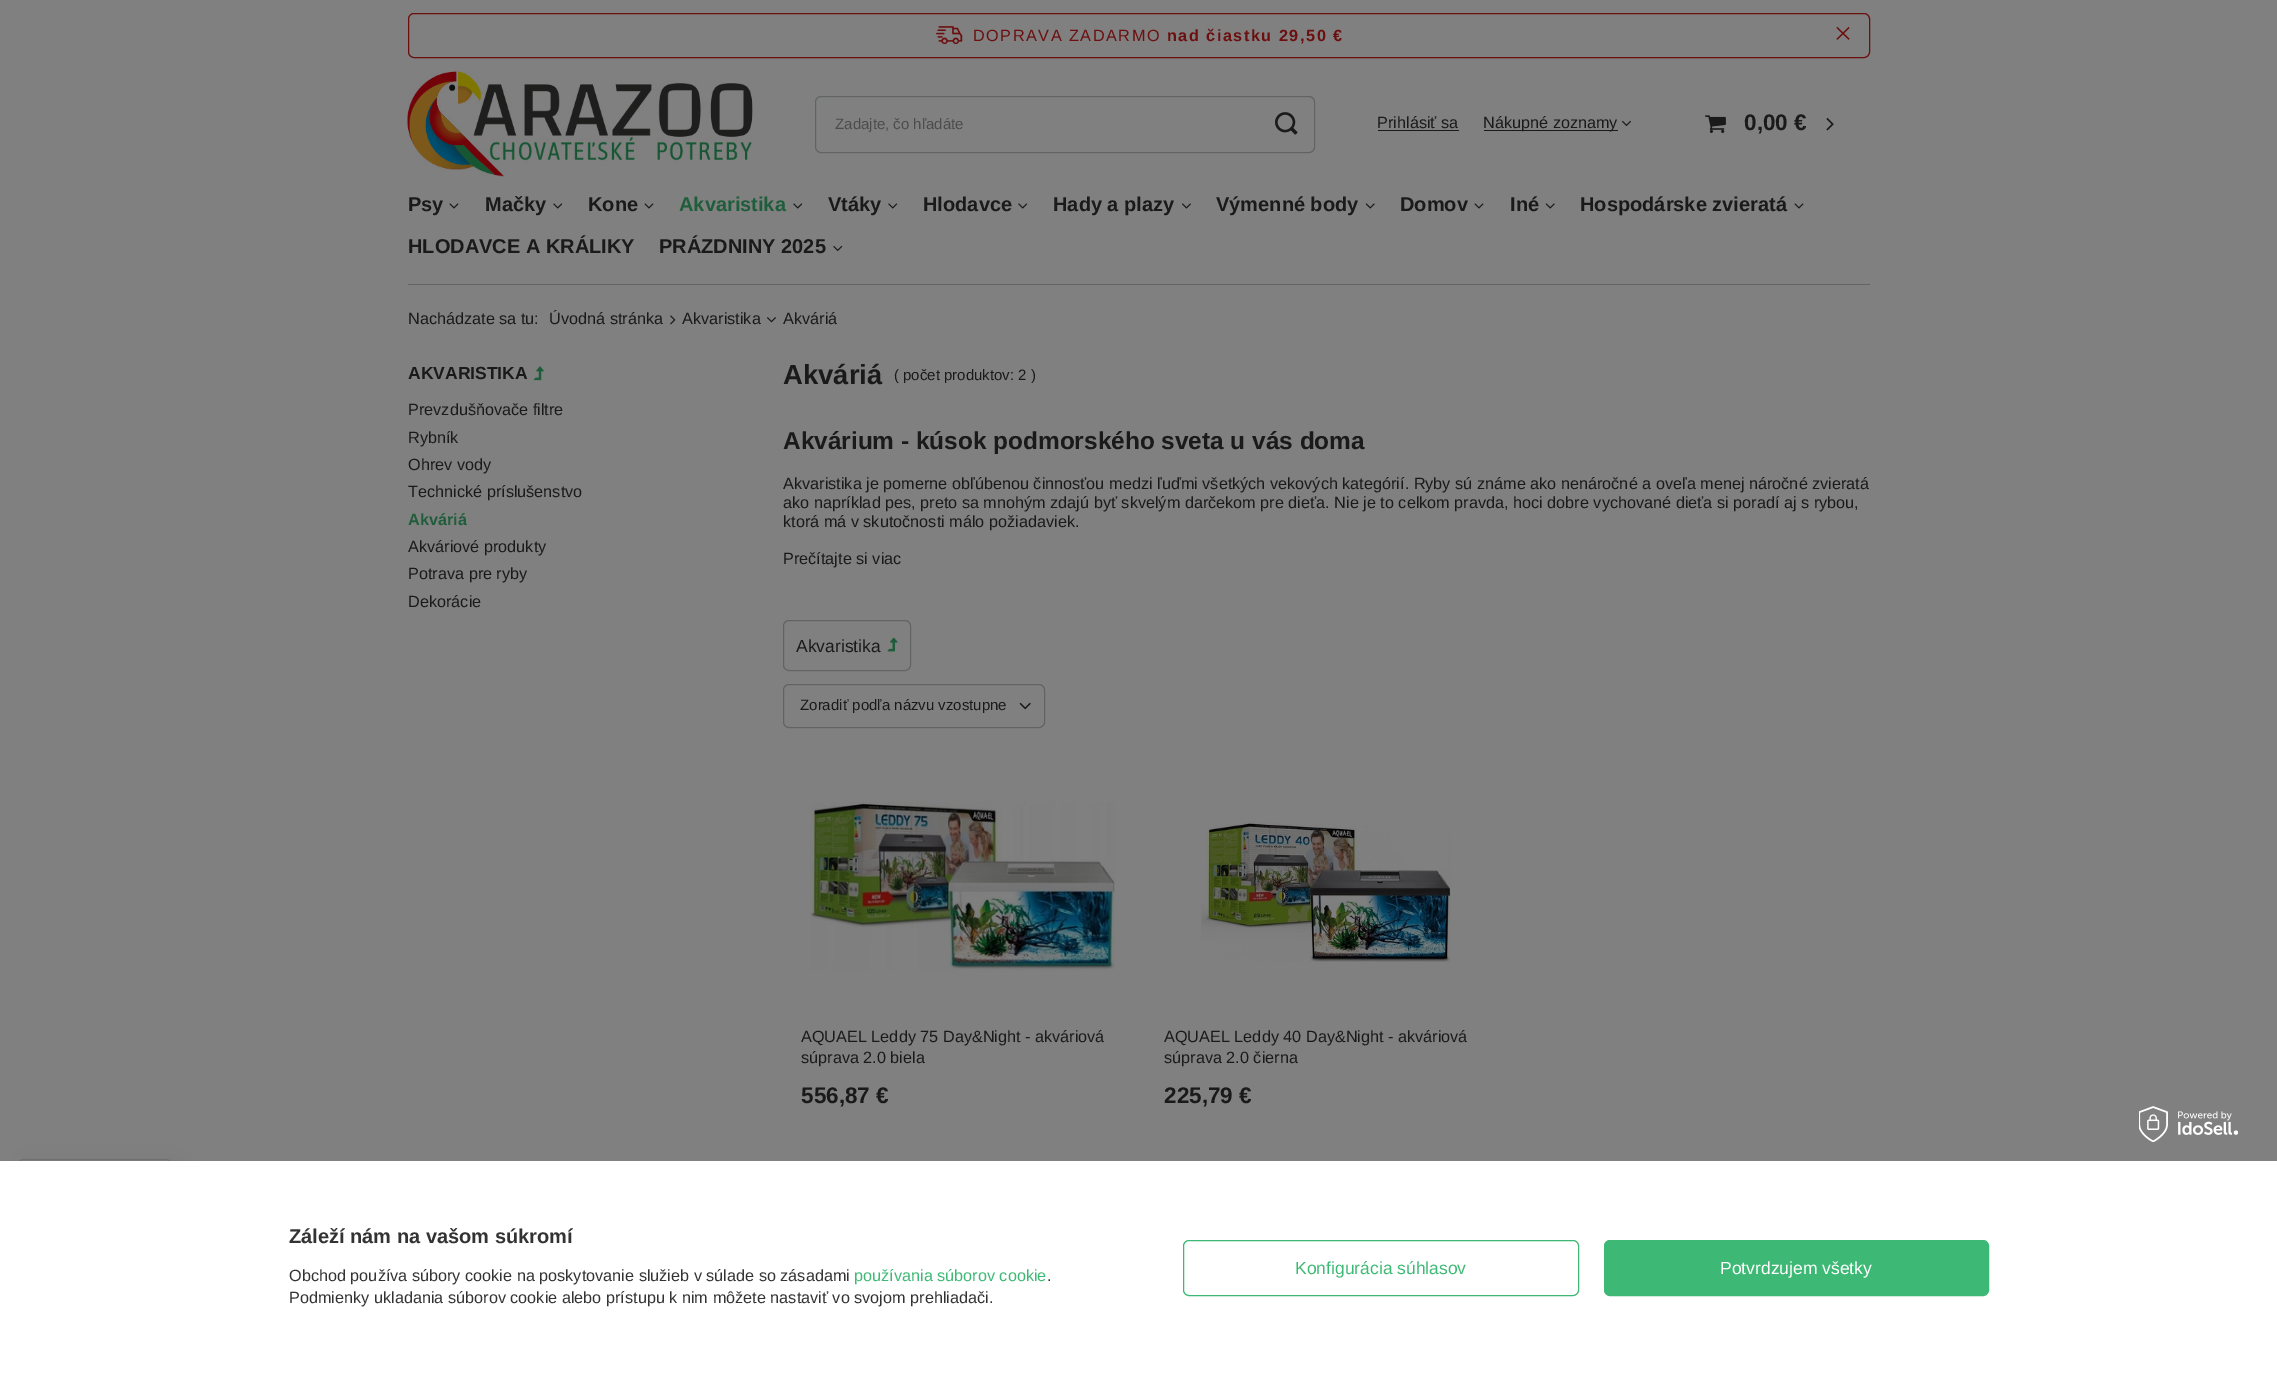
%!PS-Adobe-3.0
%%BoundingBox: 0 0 2277 1373
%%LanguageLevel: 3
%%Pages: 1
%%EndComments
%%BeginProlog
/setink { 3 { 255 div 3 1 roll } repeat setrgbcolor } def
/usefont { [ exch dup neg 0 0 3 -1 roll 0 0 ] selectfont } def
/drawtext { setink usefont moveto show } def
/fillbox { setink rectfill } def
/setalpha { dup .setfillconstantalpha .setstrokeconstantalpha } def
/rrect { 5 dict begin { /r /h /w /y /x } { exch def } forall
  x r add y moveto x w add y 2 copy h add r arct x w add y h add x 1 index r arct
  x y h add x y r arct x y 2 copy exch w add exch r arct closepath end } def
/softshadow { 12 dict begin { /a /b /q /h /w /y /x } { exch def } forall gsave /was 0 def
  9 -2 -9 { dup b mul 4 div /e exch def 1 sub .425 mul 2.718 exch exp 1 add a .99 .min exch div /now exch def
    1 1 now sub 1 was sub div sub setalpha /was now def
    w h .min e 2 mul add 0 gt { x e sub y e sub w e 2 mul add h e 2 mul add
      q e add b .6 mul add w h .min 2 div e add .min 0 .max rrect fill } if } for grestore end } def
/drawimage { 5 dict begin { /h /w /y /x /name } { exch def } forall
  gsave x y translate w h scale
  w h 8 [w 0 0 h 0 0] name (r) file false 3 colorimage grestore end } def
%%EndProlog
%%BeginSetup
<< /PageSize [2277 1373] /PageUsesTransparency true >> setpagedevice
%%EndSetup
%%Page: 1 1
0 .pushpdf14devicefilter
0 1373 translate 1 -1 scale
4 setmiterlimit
0 0 2277 1373 128 128 128 fillbox
108 15 15 setink
408.5 13.5 1461 44 5.5 rrect stroke
(assets/img1.rgb) 936 26 27 19 drawimage
/LiberationSans-Regular 16.25 usefont
973 41 moveto 1.5 0 (DOPRAVA ZADARMO) ashow
/LiberationSans-Bold 16.25 usefont
1167 41 moveto 1.5 0 (nad čiastku 29,50 €) ashow
(assets/img2.rgb) 1836 26 14 14 drawimage
(assets/img3.rgb) 407 71 346 106 drawimage
98 100 100 setink
815.5 96.5 499 56 5.5 rrect stroke
(Zadajte, čo hľadáte) 835 129 /LiberationSans-Regular 15 76 76 76 drawtext
(assets/img4.rgb) 1275 112 23 23 drawimage
(Prihlásiť sa) 1377 128 /LiberationSans-Regular 16.25 26 26 26 drawtext
1378 130 81 1 26 26 26 fillbox
1484 130 134 1 26 26 26 fillbox
(Nákupné zoznamy) 1483 128 /LiberationSans-Regular 16.25 26 26 26 drawtext
(assets/img5.rgb) 1622 120 9 7 drawimage
(assets/img6.rgb) 1705 115 21 18 drawimage
(0,00 €) 1744 130 /LiberationSans-Bold 22.5 26 26 26 drawtext
(assets/img7.rgb) 1826 118 8 13 drawimage
408 284 1462 1 98 100 100 fillbox
(Psy) 408 211 /LiberationSans-Bold 20 26 26 26 drawtext
(assets/img8.rgb) 449 203 10 6 drawimage
(Mačky) 485 211 /LiberationSans-Bold 20 26 26 26 drawtext
(assets/img9.rgb) 553 203 10 6 drawimage
(Kone) 588 211 /LiberationSans-Bold 20 26 26 26 drawtext
(assets/img8.rgb) 644 203 10 6 drawimage
(Akvaristika) 679 211 /LiberationSans-Bold 20 31 93 59 drawtext
(assets/img9.rgb) 793 203 10 6 drawimage
(Vtáky) 828 211 /LiberationSans-Bold 20 26 26 26 drawtext
(assets/img9.rgb) 888 203 10 6 drawimage
(Hlodavce) 923 211 /LiberationSans-Bold 20 26 26 26 drawtext
(assets/img9.rgb) 1018 203 10 6 drawimage
(Hady a plazy) 1053 211 /LiberationSans-Bold 20 26 26 26 drawtext
(assets/img10.rgb) 1182 203 9 6 drawimage
(Výmenné body) 1216 211 /LiberationSans-Bold 20 26 26 26 drawtext
(assets/img11.rgb) 1365 203 10 6 drawimage
(Domov) 1400 211 /LiberationSans-Bold 20 26 26 26 drawtext
(assets/img8.rgb) 1474 203 10 6 drawimage
(Iné) 1510 211 /LiberationSans-Bold 20 26 26 26 drawtext
(assets/img11.rgb) 1545 203 10 6 drawimage
(Hospodárske zvieratá) 1580 211 /LiberationSans-Bold 20 26 26 26 drawtext
(assets/img8.rgb) 1794 203 10 6 drawimage
(HLODAVCE A KRÁLIKY) 408 253 /LiberationSans-Bold 20 26 26 26 drawtext
(PRÁZDNINY 2025) 659 253 /LiberationSans-Bold 20 26 26 26 drawtext
(assets/img12.rgb) 833 245 10 7 drawimage
(Nachádzate sa tu:) 408 324 /LiberationSans-Regular 16.25 26 26 26 drawtext
(Úvodná stránka) 549 324 /LiberationSans-Regular 16.25 26 26 26 drawtext
(assets/img13.rgb) 670 315 6 10 drawimage
(Akvaristika) 682 324 /LiberationSans-Regular 16.25 26 26 26 drawtext
(assets/img14.rgb) 767 317 9 6 drawimage
(Akváriá) 783 324 /LiberationSans-Regular 16.25 26 26 26 drawtext
(AKVARISTIKA) 408 379 /LiberationSans-Bold 17.5 26 26 26 drawtext
(assets/img15.rgb) 533 366 11 15 drawimage
(Prevzdušňovače filtre) 408 415 /LiberationSans-Regular 16.25 26 26 26 drawtext
(Rybník) 408 443 /LiberationSans-Regular 16.25 26 26 26 drawtext
(Ohrev vody) 408 470 /LiberationSans-Regular 16.25 26 26 26 drawtext
(Technické príslušenstvo) 408 497 /LiberationSans-Regular 16.25 26 26 26 drawtext
(Akváriá) 408 525 /LiberationSans-Bold 16.25 31 93 59 drawtext
(Akváriové produkty) 408 552 /LiberationSans-Regular 16.25 26 26 26 drawtext
(Potrava pre ryby) 408 579 /LiberationSans-Regular 16.25 26 26 26 drawtext
(Dekorácie) 408 607 /LiberationSans-Regular 16.25 26 26 26 drawtext
(Akváriá) 783 384 /LiberationSans-Bold 27.5 26 26 26 drawtext
(\( počet produktov: 2 \)) 894 380 /LiberationSans-Regular 15 26 26 26 drawtext
(Akvárium - kúsok podmorského sveta u vás doma) 783 449 /LiberationSans-Bold 24.4 26 26 26 drawtext
(Akvaristika je pomerne obľúbenou činnosťou medzi ľuďmi všetkých vekových kategórií. Ryby sú známe ako nenáročné a oveľa menej náročné zvieratá) 783 489 /LiberationSans-Regular 16.25 26 26 26 drawtext
(ako napríklad pes, preto sa mnohým zdajú byť skvelým darčekom pre dieťa. Nie je to celkom pravda, hoci dobre vychované dieťa si poradí aj s rybou,) 783 508 /LiberationSans-Regular 16.25 26 26 26 drawtext
(ktorá má v skutočnosti málo požiadaviek.) 783 527 /LiberationSans-Regular 16.25 26 26 26 drawtext
(Prečítajte si viac) 783 564 /LiberationSans-Regular 16.25 26 26 26 drawtext
98 100 100 setink
783.5 620.5 127 50 5.5 rrect stroke
(Akvaristika) 796 652 /LiberationSans-Regular 17.5 26 26 26 drawtext
(assets/img16.rgb) 887 637 11 15 drawimage
98 100 100 setink
783.5 684.5 261 43 5.5 rrect stroke
(Zoradiť podľa názvu vzostupne) 800 710 /LiberationSans-Regular 15 26 26 26 drawtext
(assets/img17.rgb) 1019 702 12 8 drawimage
(assets/img18.rgb) 810 802 305 169 drawimage
(AQUAEL Leddy 75 Day&Night - akváriová) 801 1042 /LiberationSans-Regular 16.25 26 26 26 drawtext
(súprava 2.0 biela) 801 1063 /LiberationSans-Regular 16.25 26 26 26 drawtext
(556,87 €) 801 1103 /LiberationSans-Bold 22.5 26 26 26 drawtext
(assets/img19.rgb) 1201 822 250 140 drawimage
(AQUAEL Leddy 40 Day&Night - akváriová) 1164 1042 /LiberationSans-Regular 16.25 26 26 26 drawtext
(súprava 2.0 čierna) 1164 1063 /LiberationSans-Regular 16.25 26 26 26 drawtext
(225,79 €) 1164 1103 /LiberationSans-Bold 22.5 26 26 26 drawtext
0 0 0 setink
25 1165 151 196 4 9.5 0.1 softshadow
128 128 128 setink
19.5 1159.5 150 195 3.5 rrect gsave fill grestore
111 111 111 setink
stroke
0 1161 2277 212 255 255 255 fillbox
(assets/img20.rgb) 2139 1106 99 36 drawimage
(Záleží nám na vašom súkromí) 289 1243 /LiberationSans-Bold 20 51 51 51 drawtext
(Obchod používa súbory cookie na poskytovanie služieb v súlade so zásadami) 289 1281 /LiberationSans-Regular 16.25 51 51 51 drawtext
(používania súborov cookie) 854 1281 /LiberationSans-Regular 16.25 62 185 117 drawtext
(.) 1047 1281 /LiberationSans-Regular 16.25 51 51 51 drawtext
(Podmienky ukladania súborov cookie alebo prístupu k nim môžete nastaviť vo svojom prehliadači.) 289 1303 /LiberationSans-Regular 16.25 51 51 51 drawtext
62 185 117 setink
1183.5 1240.5 395 55 5.5 rrect stroke
(Konfigurácia súhlasov) 1295 1274 /LiberationSans-Regular 17.5 62 185 117 drawtext
1604.5 1240.5 384 55 5.5 rrect gsave fill grestore
stroke
(Potvrdzujem všetky) 1720 1274 /LiberationSans-Regular 17.5 255 255 255 drawtext
.poppdf14devicefilter showpage
%%EOF
